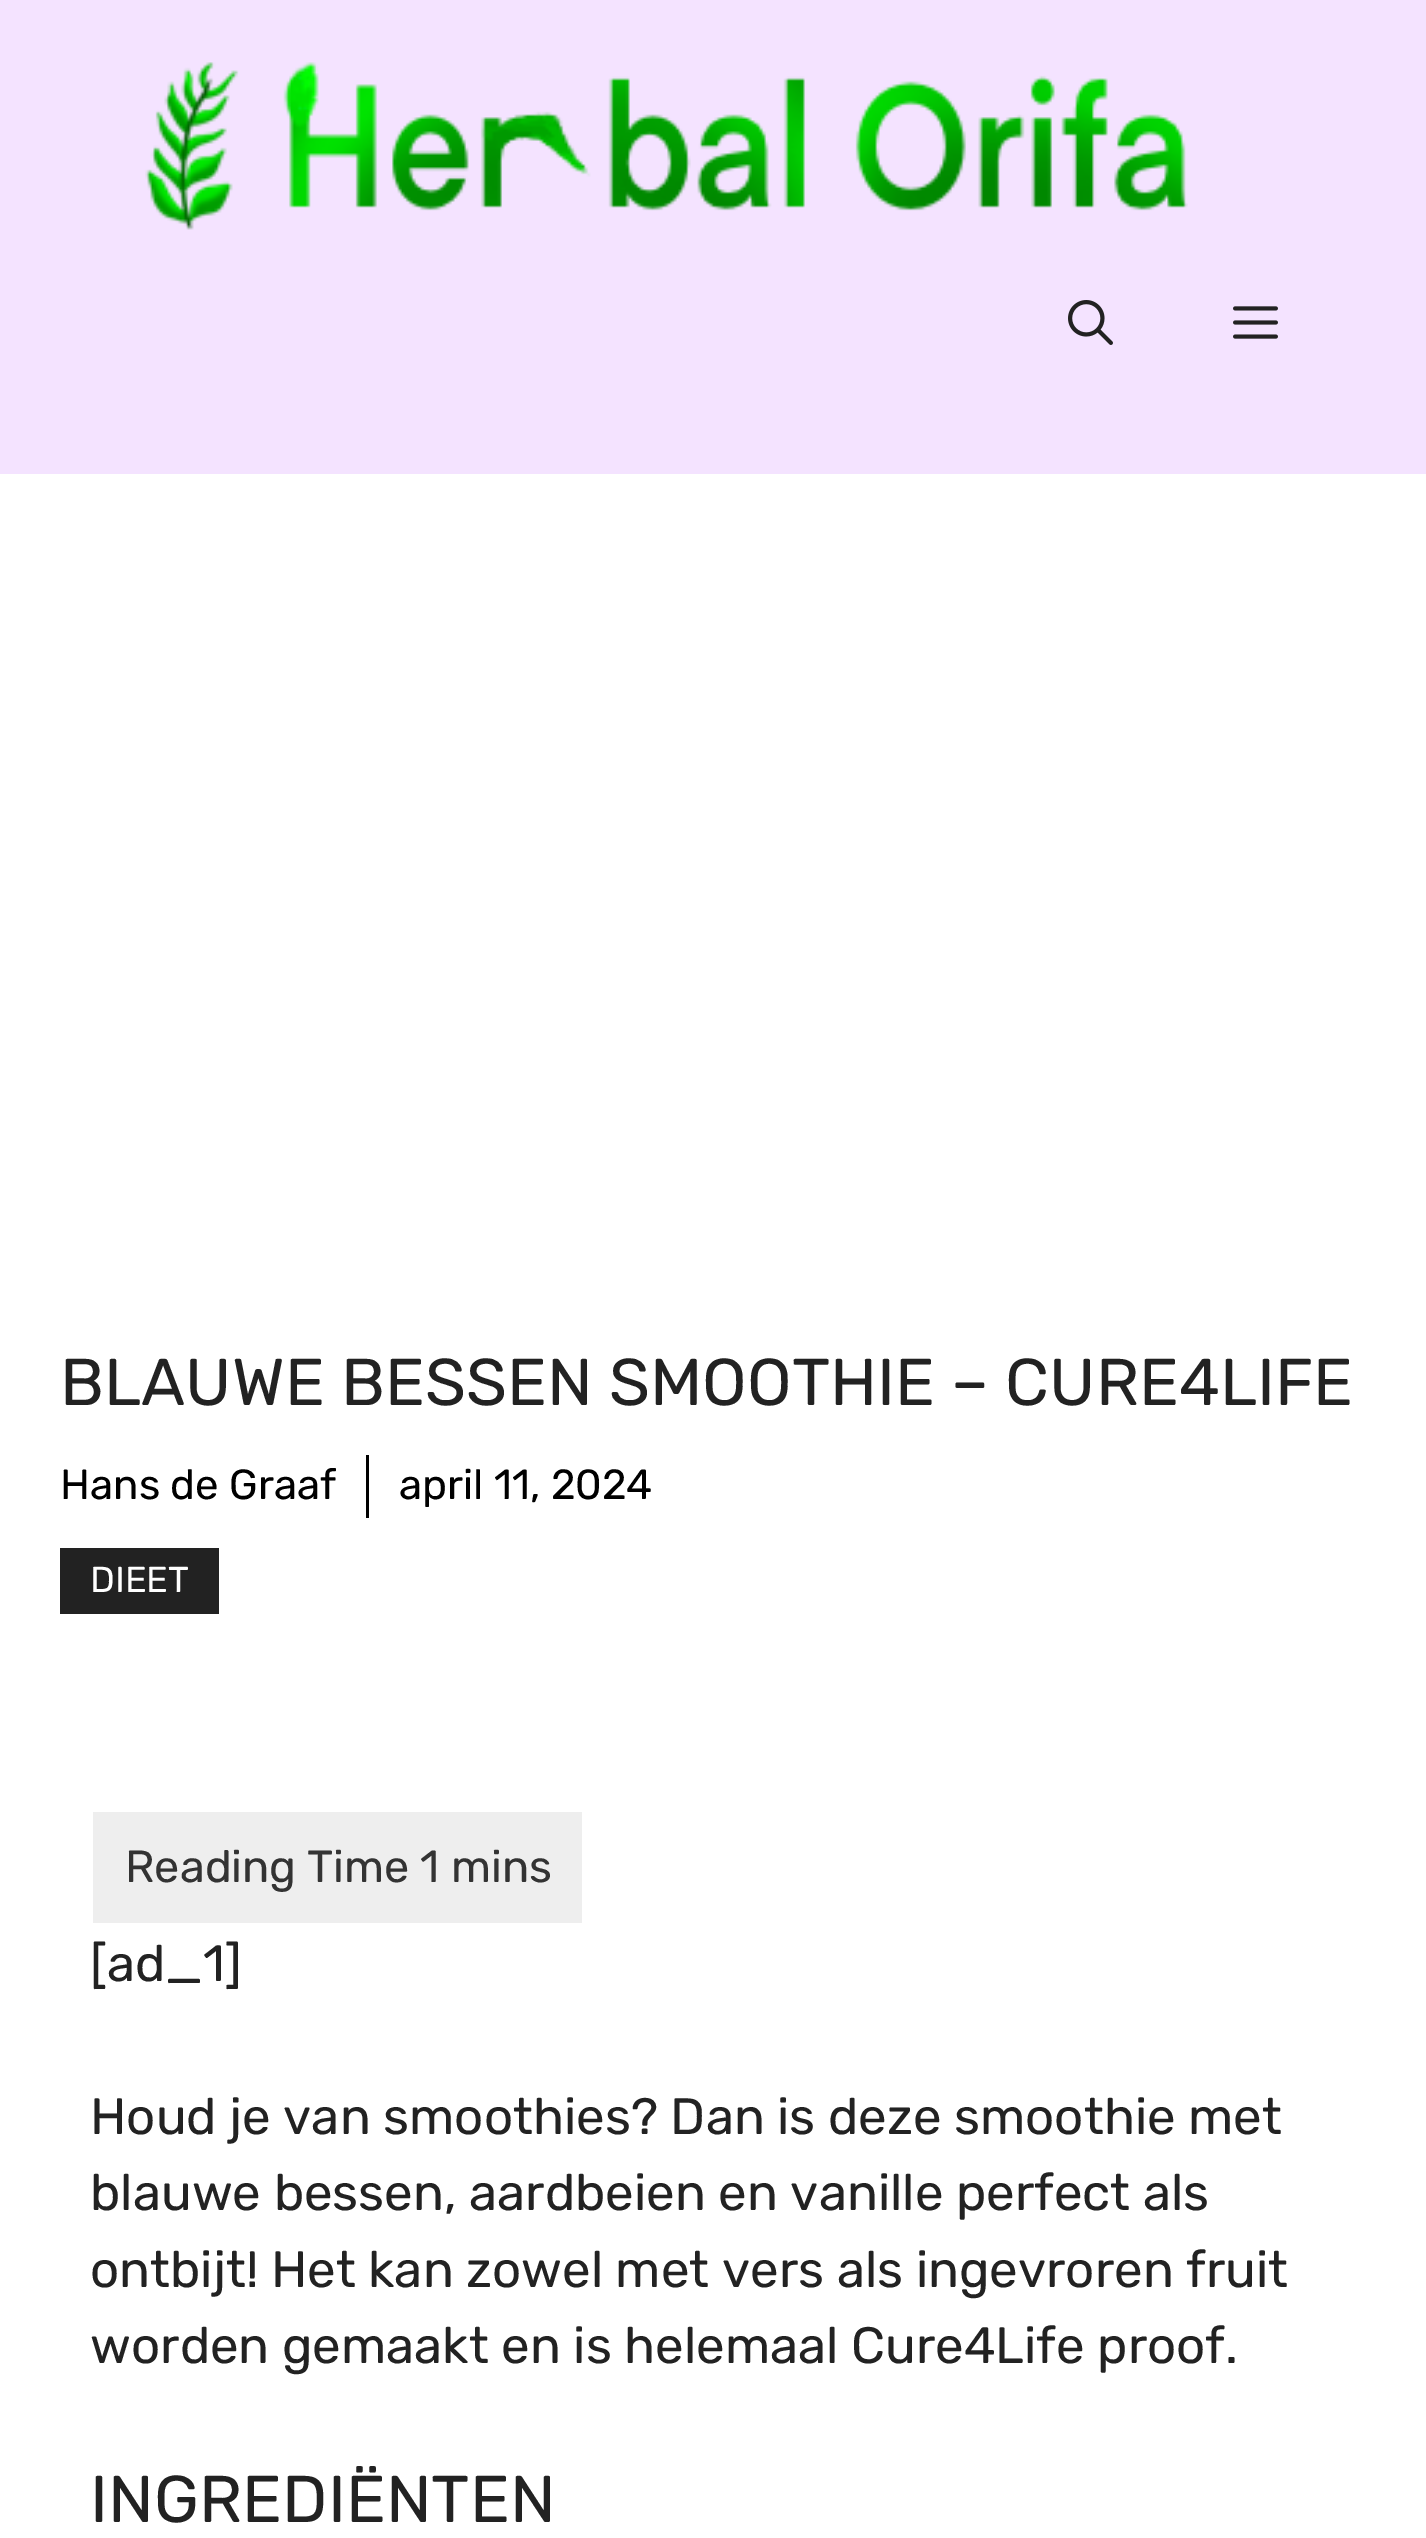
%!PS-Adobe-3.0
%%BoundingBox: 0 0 1426 2538
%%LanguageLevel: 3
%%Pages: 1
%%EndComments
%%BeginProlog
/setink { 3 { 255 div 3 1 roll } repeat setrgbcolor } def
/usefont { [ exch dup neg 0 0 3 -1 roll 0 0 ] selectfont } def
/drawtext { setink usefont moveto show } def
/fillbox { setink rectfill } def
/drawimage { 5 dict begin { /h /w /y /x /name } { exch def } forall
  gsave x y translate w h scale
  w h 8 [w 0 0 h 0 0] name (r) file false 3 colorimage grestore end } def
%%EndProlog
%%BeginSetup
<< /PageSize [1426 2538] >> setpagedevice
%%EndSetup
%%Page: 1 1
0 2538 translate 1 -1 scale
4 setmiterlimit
0 0 1426 2538 255 255 255 fillbox
0 0 1426 474 244 227 255 fillbox
(assets/img1.rgb) 145 62 1043 168 drawimage
(assets/img2.rgb) 1068 300 45 45 drawimage
(assets/img3.rgb) 1233 306 45 33 drawimage
(BLAUWE BESSEN SMOOTHIE – CURE4LIFE) 60 1405 /Rubik-Regular 66 34 34 34 drawtext
366 1455 3 63 0 0 0 fillbox
(Hans de Graaf) 60 1499 /Rubik-Regular 42 0 0 0 drawtext
(april 11, 2024) 399 1499 /Rubik-Regular 42 0 0 0 drawtext
60 1548 159 66 34 34 34 fillbox
(DIEET) 90 1592 /Rubik-Regular 36 255 255 255 drawtext
93 1812 489 111 238 238 238 fillbox
(Reading Time 1 mins) 125 1882 /Rubik-Regular 45 51 51 51 drawtext
([ad_1]) 90 1981 /Rubik-Regular 51 34 34 34 drawtext
(Houd je van smoothies? Dan is deze smoothie met) 90 2134 /Rubik-Regular 51 34 34 34 drawtext
(blauwe bessen, aardbeien en vanille perfect als) 90 2210 /Rubik-Regular 51 34 34 34 drawtext
(ontbijt! Het kan zowel met vers als ingevroren fruit) 90 2287 /Rubik-Regular 51 34 34 34 drawtext
(worden gemaakt en is helemaal Cure4Life proof.) 90 2363 /Rubik-Regular 51 34 34 34 drawtext
(INGREDIËNTEN) 90 2522 /Rubik-Regular 66 34 34 34 drawtext
showpage
%%EOF
